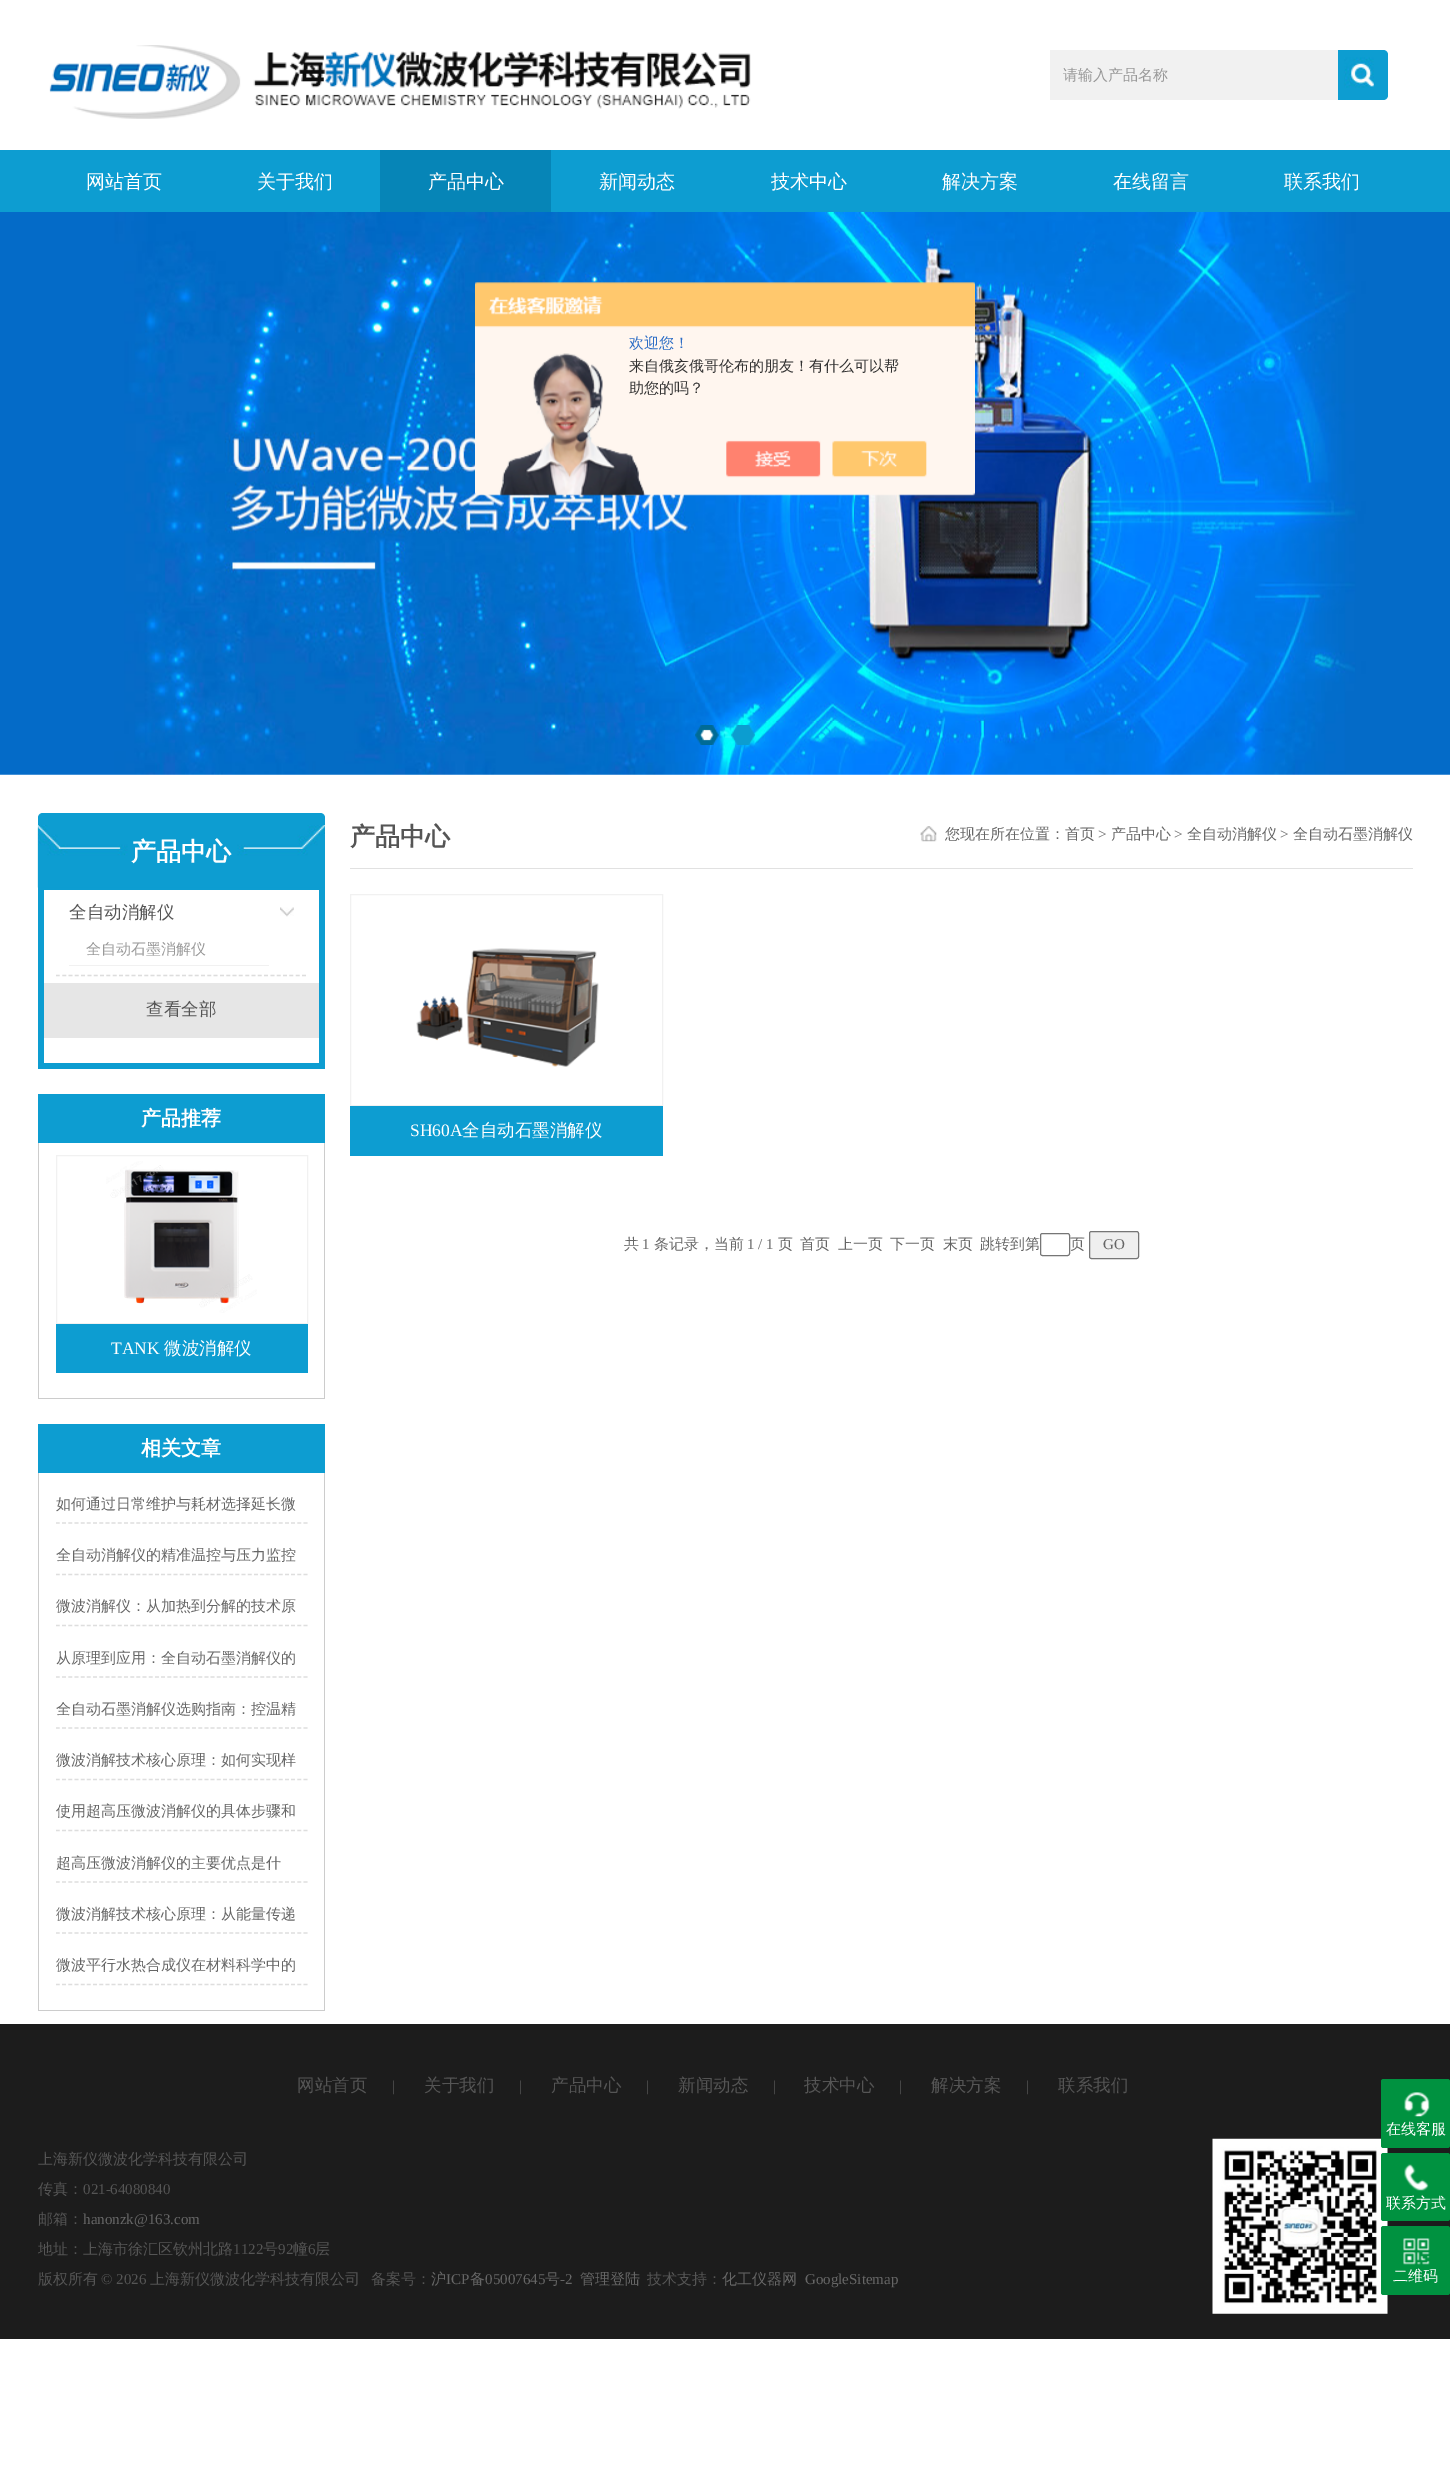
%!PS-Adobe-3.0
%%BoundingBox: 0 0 1450 2484
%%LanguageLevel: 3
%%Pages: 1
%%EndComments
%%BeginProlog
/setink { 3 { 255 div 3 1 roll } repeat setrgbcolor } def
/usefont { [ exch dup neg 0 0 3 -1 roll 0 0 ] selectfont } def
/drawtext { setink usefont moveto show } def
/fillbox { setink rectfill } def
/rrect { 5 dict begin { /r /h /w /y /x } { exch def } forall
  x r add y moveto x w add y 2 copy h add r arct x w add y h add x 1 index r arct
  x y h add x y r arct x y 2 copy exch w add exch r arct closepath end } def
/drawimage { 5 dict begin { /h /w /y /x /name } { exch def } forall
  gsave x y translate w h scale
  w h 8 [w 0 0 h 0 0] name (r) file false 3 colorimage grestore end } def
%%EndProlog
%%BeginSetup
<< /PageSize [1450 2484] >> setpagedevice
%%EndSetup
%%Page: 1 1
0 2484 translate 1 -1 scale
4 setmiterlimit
0 0 1450 2484 255 255 255 fillbox
(assets/img1.rgb) 49 45 702 74 drawimage
1050 50 288 50 241 241 241 fillbox
(请输入产品名称) 1063 80 /WenQuanYiZenHei-Medium 15 153 153 153 drawtext
13 157 209 setink
1338 50 moveto 1383 50 lineto 1386 50 1388 52 1388 55 curveto 1388 95 lineto 1388 98 1386 100 1383 100 curveto 1338 100 lineto closepath fill
(assets/img2.rgb) 1344 57 30 31 drawimage
0 150 1450 62 13 157 209 fillbox
(网站首页) 86 188 /WenQuanYiZenHei-Medium 19 255 255 255 drawtext
(关于我们) 257 188 /WenQuanYiZenHei-Medium 19 255 255 255 drawtext
380 150 171 62 6 133 183 fillbox
(产品中心) 428 188 /WenQuanYiZenHei-Medium 19 255 255 255 drawtext
(新闻动态) 599 188 /WenQuanYiZenHei-Medium 19 255 255 255 drawtext
(技术中心) 771 188 /WenQuanYiZenHei-Medium 19 255 255 255 drawtext
(解决方案) 942 188 /WenQuanYiZenHei-Medium 19 255 255 255 drawtext
(在线留言) 1113 188 /WenQuanYiZenHei-Medium 19 255 255 255 drawtext
(联系我们) 1284 188 /WenQuanYiZenHei-Medium 19 255 255 255 drawtext
(assets/img3.rgb) 0 212 1450 563 drawimage
(assets/img4.rgb) 695 725 24 20 drawimage
(assets/img5.rgb) 731 725 24 20 drawimage
13 157 209 setink
43 813 moveto 320 813 lineto 323 813 325 815 325 818 curveto 325 890 lineto 38 890 lineto 38 818 lineto 38 815 40 813 43 813 curveto closepath fill
(assets/img6.rgb) 37 825 288 63 drawimage
(产品中心) 131 860 /WenQuanYiZenHei-Bold 25 255 255 255 drawtext
319 890 6 179 13 157 209 fillbox
38 1063 287 6 13 157 209 fillbox
38 890 6 179 13 157 209 fillbox
221 221 221 setink
1.2 setlinewidth
[3.75 2.56] 0 setdash
56 975.5 moveto 306 975.5 lineto stroke
(assets/img7.rgb) 280 907 14 10 drawimage
(全自动消解仪) 69 918 /WenQuanYiZenHei-Medium 17.5 85 85 85 drawtext
69 965 200 1 241 241 241 fillbox
(全自动石墨消解仪) 86 954 /WenQuanYiZenHei-Medium 15 153 153 153 drawtext
44 983 275 55 230 230 230 fillbox
(查看全部) 146 1015 /WenQuanYiZenHei-Medium 17.5 85 85 85 drawtext
38 1094 287 49 13 157 209 fillbox
(产品推荐) 141 1125 /WenQuanYiZenHei-Bold 20 255 255 255 drawtext
324 1143 1 256 204 204 204 fillbox
38 1398 287 1 204 204 204 fillbox
38 1143 1 256 204 204 204 fillbox
241 241 241 setink
1 setlinewidth
[] 0 setdash
56.5 1155.5 251 168 rectstroke
(assets/img8.rgb) 106 1161 151 152 drawimage
56 1324 252 49 13 157 209 fillbox
(TANK) 111 1354 /LiberationSerif-Regular 17.5 255 255 255 drawtext
(微波消解仪) 164 1354 /WenQuanYiZenHei-Medium 17.5 255 255 255 drawtext
38 1424 287 49 13 157 209 fillbox
(相关文章) 141 1455 /WenQuanYiZenHei-Bold 20 255 255 255 drawtext
324 1473 1 538 204 204 204 fillbox
38 2010 287 1 204 204 204 fillbox
38 1473 1 538 204 204 204 fillbox
222 222 222 setink
1.2 setlinewidth
[3.75 2.44] 0 setdash
56 1523 moveto 307.5 1523 lineto stroke
(如何通过日常维护与耗材选择延长微) 56 1509 /WenQuanYiZenHei-Medium 15 102 102 102 drawtext
222 222 222 setink
56 1574.5 moveto 307.5 1574.5 lineto stroke
(全自动消解仪的精准温控与压力监控) 56 1560 /WenQuanYiZenHei-Medium 15 102 102 102 drawtext
222 222 222 setink
56 1625.5 moveto 307.5 1625.5 lineto stroke
(微波消解仪：从加热到分解的技术原) 56 1611 /WenQuanYiZenHei-Medium 15 102 102 102 drawtext
222 222 222 setink
56 1677 moveto 307.5 1677 lineto stroke
(从原理到应用：全自动石墨消解仪的) 56 1663 /WenQuanYiZenHei-Medium 15 102 102 102 drawtext
222 222 222 setink
56 1728 moveto 307.5 1728 lineto stroke
(全自动石墨消解仪选购指南：控温精) 56 1714 /WenQuanYiZenHei-Medium 15 102 102 102 drawtext
222 222 222 setink
56 1779.5 moveto 307.5 1779.5 lineto stroke
(微波消解技术核心原理：如何实现样) 56 1765 /WenQuanYiZenHei-Medium 15 102 102 102 drawtext
222 222 222 setink
56 1830.5 moveto 307.5 1830.5 lineto stroke
(使用超高压微波消解仪的具体步骤和) 56 1816 /WenQuanYiZenHei-Medium 15 102 102 102 drawtext
222 222 222 setink
56 1882 moveto 307.5 1882 lineto stroke
(超高压微波消解仪的主要优点是什) 56 1868 /WenQuanYiZenHei-Medium 15 102 102 102 drawtext
222 222 222 setink
56 1933 moveto 307.5 1933 lineto stroke
(微波消解技术核心原理：从能量传递) 56 1919 /WenQuanYiZenHei-Medium 15 102 102 102 drawtext
222 222 222 setink
56 1984.5 moveto 307.5 1984.5 lineto stroke
(微波平行水热合成仪在材料科学中的) 56 1970 /WenQuanYiZenHei-Medium 15 102 102 102 drawtext
350 868 1063 1 225 225 225 fillbox
(产品中心) 350 845 /WenQuanYiZenHei-Bold 25 85 85 85 drawtext
(assets/img9.rgb) 920 826 17 16 drawimage
(您现在所在位置：首页) 945 839 /WenQuanYiZenHei-Medium 15 102 102 102 drawtext
(>) 1098 839 /LiberationSerif-Regular 15 102 102 102 drawtext
(产品中心) 1111 839 /WenQuanYiZenHei-Medium 15 102 102 102 drawtext
(>) 1174 839 /LiberationSerif-Regular 15 102 102 102 drawtext
(全自动消解仪) 1187 839 /WenQuanYiZenHei-Medium 15 102 102 102 drawtext
(>) 1280 839 /LiberationSerif-Regular 15 102 102 102 drawtext
(全自动石墨消解仪) 1293 839 /WenQuanYiZenHei-Medium 15 102 102 102 drawtext
241 241 241 setink
1 setlinewidth
[] 0 setdash
350.5 894.5 312 211 rectstroke
(assets/img10.rgb) 416 948 183 119 drawimage
350 1106 313 50 13 157 209 fillbox
(SH60A) 410 1136 /LiberationSerif-Regular 17.5 255 255 255 drawtext
(全自动石墨消解仪) 462 1136 /WenQuanYiZenHei-Medium 17.5 255 255 255 drawtext
(共) 624 1249 /WenQuanYiZenHei-Medium 15 102 102 102 drawtext
(1) 642 1249 /LiberationSerif-Regular 15 102 102 102 drawtext
(条记录，当前) 654 1249 /WenQuanYiZenHei-Medium 15 102 102 102 drawtext
(1 / 1) 747 1249 /LiberationSerif-Regular 15 102 102 102 drawtext
(页) 778 1249 /WenQuanYiZenHei-Medium 15 102 102 102 drawtext
(首页) 800 1249 /WenQuanYiZenHei-Medium 15 102 102 102 drawtext
(上一页) 838 1249 /WenQuanYiZenHei-Medium 15 102 102 102 drawtext
(下一页) 890 1249 /WenQuanYiZenHei-Medium 15 102 102 102 drawtext
(末页) 943 1249 /WenQuanYiZenHei-Medium 15 102 102 102 drawtext
(跳转到第) 980 1249 /WenQuanYiZenHei-Medium 15 102 102 102 drawtext
118 118 118 setink
1040.5 1233.5 29 22 2 rrect stroke
(页) 1070 1249 /WenQuanYiZenHei-Medium 15 102 102 102 drawtext
239 239 239 setink
1089.5 1231.5 49 27 2 rrect gsave fill grestore
118 118 118 setink
stroke
(GO) 1103 1249 /LiberationSerif-Regular 15 102 102 102 drawtext
0 2024 1450 315 28 28 28 fillbox
(网站首页) 297 2091 /WenQuanYiZenHei-Medium 17.5 85 85 85 drawtext
(|) 392 2091 /LiberationSerif-Regular 15 85 85 85 drawtext
(关于我们) 424 2091 /WenQuanYiZenHei-Medium 17.5 85 85 85 drawtext
(|) 519 2091 /LiberationSerif-Regular 15 85 85 85 drawtext
(产品中心) 551 2091 /WenQuanYiZenHei-Medium 17.5 85 85 85 drawtext
(|) 646 2091 /LiberationSerif-Regular 15 85 85 85 drawtext
(新闻动态) 678 2091 /WenQuanYiZenHei-Medium 17.5 85 85 85 drawtext
(|) 773 2091 /LiberationSerif-Regular 15 85 85 85 drawtext
(技术中心) 804 2091 /WenQuanYiZenHei-Medium 17.5 85 85 85 drawtext
(|) 899 2091 /LiberationSerif-Regular 15 85 85 85 drawtext
(解决方案) 931 2091 /WenQuanYiZenHei-Medium 17.5 85 85 85 drawtext
(|) 1026 2091 /LiberationSerif-Regular 15 85 85 85 drawtext
(联系我们) 1058 2091 /WenQuanYiZenHei-Medium 17.5 85 85 85 drawtext
(上海新仪微波化学科技有限公司) 38 2164 /WenQuanYiZenHei-Medium 15 85 85 85 drawtext
(传真：) 38 2194 /WenQuanYiZenHei-Medium 15 85 85 85 drawtext
(021-64080840) 83 2194 /LiberationSerif-Regular 15 85 85 85 drawtext
(邮箱：) 38 2224 /WenQuanYiZenHei-Medium 15 85 85 85 drawtext
(hanonzk@163.com) 83 2224 /LiberationSerif-Regular 15 102 102 102 drawtext
(地址：上海市徐汇区钦州北路) 38 2254 /WenQuanYiZenHei-Medium 15 85 85 85 drawtext
(1122) 233 2254 /LiberationSerif-Regular 15 85 85 85 drawtext
(号) 263 2254 /WenQuanYiZenHei-Medium 15 85 85 85 drawtext
(92) 278 2254 /LiberationSerif-Regular 15 85 85 85 drawtext
(幢) 293 2254 /WenQuanYiZenHei-Medium 15 85 85 85 drawtext
(6) 308 2254 /LiberationSerif-Regular 15 85 85 85 drawtext
(层) 315 2254 /WenQuanYiZenHei-Medium 15 85 85 85 drawtext
(版权所有) 38 2284 /WenQuanYiZenHei-Medium 15 85 85 85 drawtext
(© 2026) 101 2284 /LiberationSerif-Regular 15 85 85 85 drawtext
(上海新仪微波化学科技有限公司) 150 2284 /WenQuanYiZenHei-Medium 15 85 85 85 drawtext
(备案号：) 371 2284 /WenQuanYiZenHei-Medium 15 85 85 85 drawtext
(沪) 431 2284 /WenQuanYiZenHei-Medium 15 102 102 102 drawtext
(ICP) 446 2284 /LiberationSerif-Regular 15 102 102 102 drawtext
(备) 470 2284 /WenQuanYiZenHei-Medium 15 102 102 102 drawtext
(05007645) 485 2284 /LiberationSerif-Regular 15 102 102 102 drawtext
(号) 545 2284 /WenQuanYiZenHei-Medium 15 102 102 102 drawtext
(-2) 560 2284 /LiberationSerif-Regular 15 102 102 102 drawtext
(管理登陆) 580 2284 /WenQuanYiZenHei-Medium 15 102 102 102 drawtext
(技术支持：) 647 2284 /WenQuanYiZenHei-Medium 15 85 85 85 drawtext
(化工仪器网) 722 2284 /WenQuanYiZenHei-Medium 15 102 102 102 drawtext
(GoogleSitemap) 805 2284 /LiberationSerif-Regular 15 102 102 102 drawtext
(assets/img11.rgb) 1212 2138 176 176 drawimage
0 146 64 setink
1381 2079 69 69 2.5 rrect fill
(assets/img12.rgb) 1404 2092 26 25 drawimage
(在线客服) 1386 2134 /WenQuanYiZenHei-Medium 15 255 255 255 drawtext
0 146 64 setink
1381 2153 69 68 2.5 rrect fill
(assets/img13.rgb) 1404 2164 25 27 drawimage
(联系方式) 1386 2208 /WenQuanYiZenHei-Medium 15 255 255 255 drawtext
0 146 64 setink
1381 2226 69 69 2.5 rrect fill
(assets/img14.rgb) 1403 2238 27 27 drawimage
(二维码) 1393 2281 /WenQuanYiZenHei-Medium 15 255 255 255 drawtext
(assets/img15.rgb) 475 282 500 214 drawimage
(欢迎您！) 629 348 /WenQuanYiZenHei-Medium 15 46 110 198 drawtext
(来自俄亥俄哥伦布的朋友！有什么可以帮) 629 371 /WenQuanYiZenHei-Medium 15 51 51 51 drawtext
(助您的吗？) 629 393 /WenQuanYiZenHei-Medium 15 51 51 51 drawtext
showpage
%%EOF
